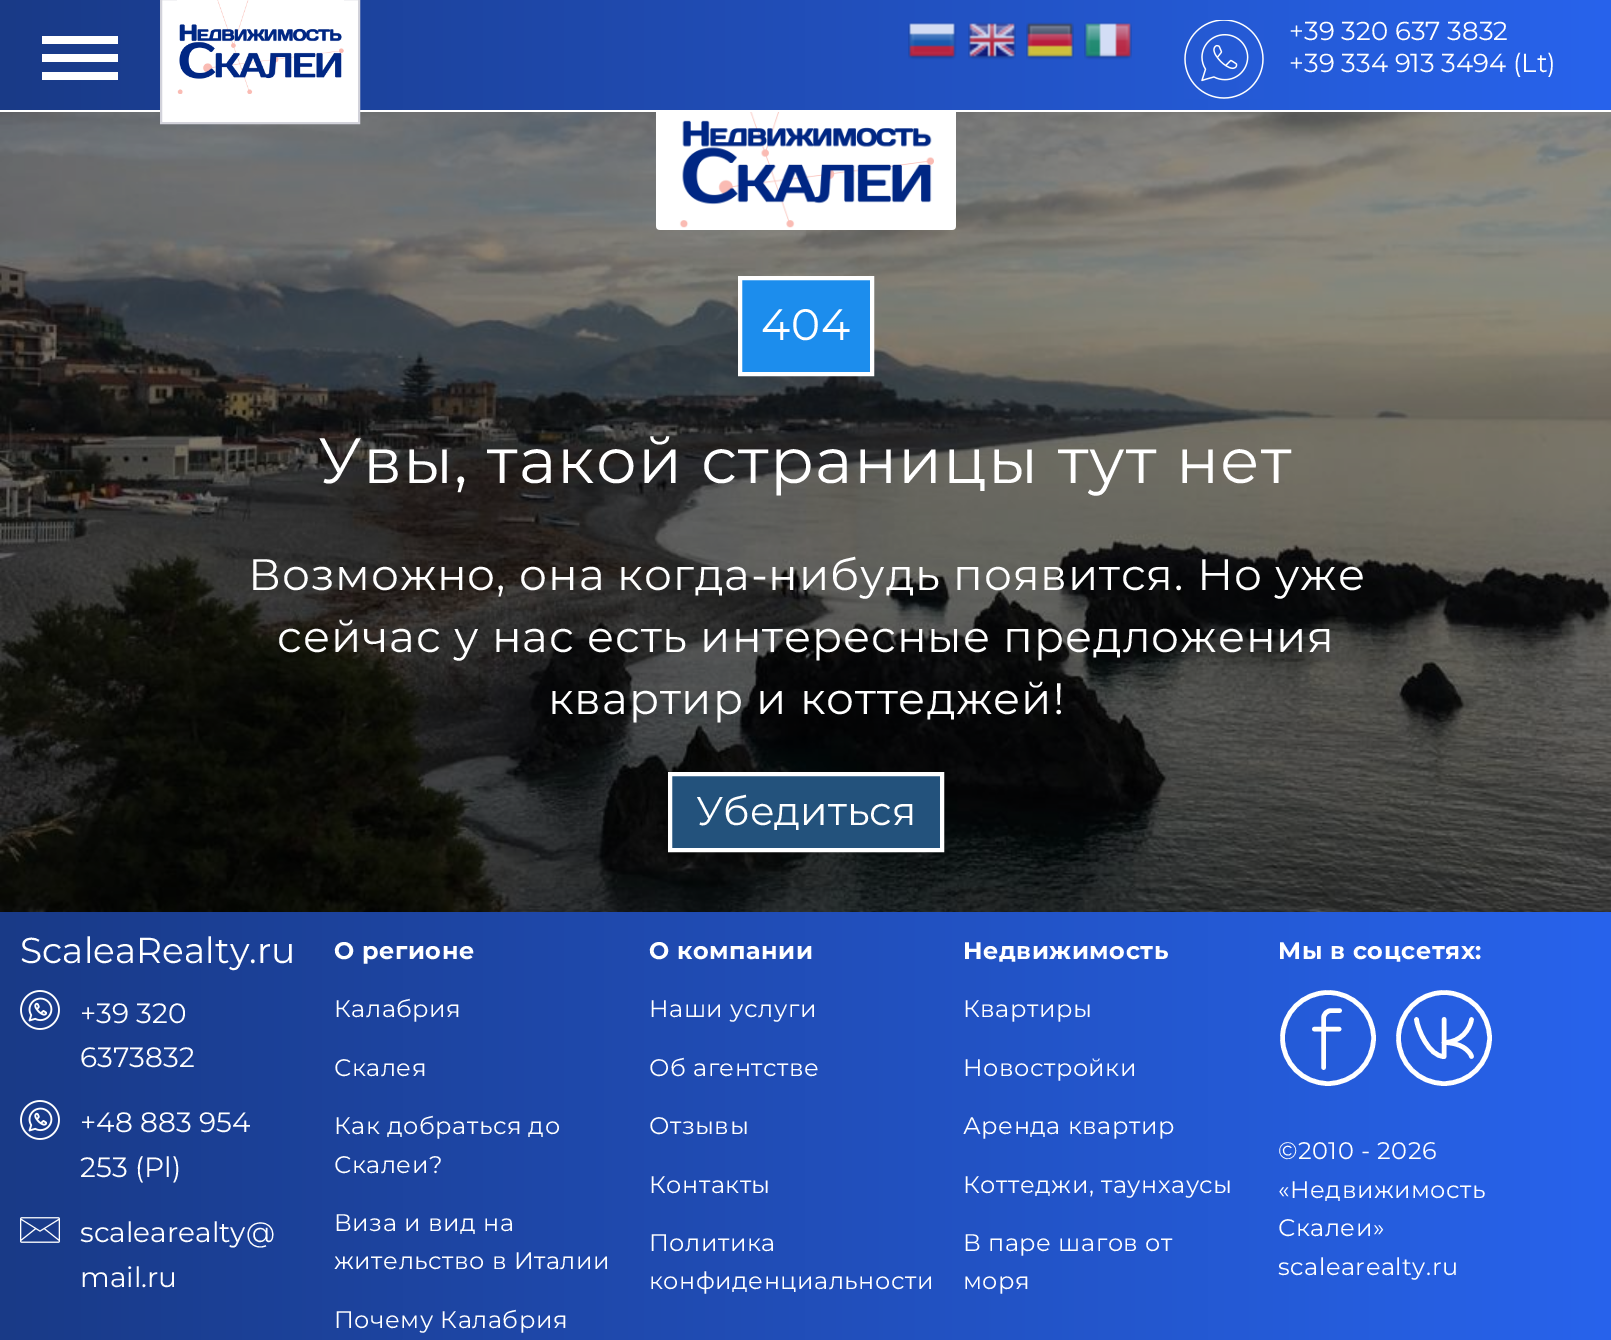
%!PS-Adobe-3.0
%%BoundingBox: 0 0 1611 1340
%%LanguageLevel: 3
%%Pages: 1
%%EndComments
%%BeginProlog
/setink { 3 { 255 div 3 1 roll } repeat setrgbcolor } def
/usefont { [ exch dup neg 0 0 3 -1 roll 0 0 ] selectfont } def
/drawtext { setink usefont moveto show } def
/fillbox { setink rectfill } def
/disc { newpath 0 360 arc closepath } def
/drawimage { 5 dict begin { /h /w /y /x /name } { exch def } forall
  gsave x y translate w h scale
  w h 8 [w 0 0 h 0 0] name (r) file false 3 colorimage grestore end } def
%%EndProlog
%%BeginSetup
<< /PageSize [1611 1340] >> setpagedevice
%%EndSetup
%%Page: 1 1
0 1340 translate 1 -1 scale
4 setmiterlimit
0 0 1611 1340 255 255 255 fillbox
gsave 0 0 moveto 1611 0 lineto 1611 110 lineto 0 110 lineto closepath clip newpath
<< /ShadingType 2 /ColorSpace /DeviceRGB /Coords [0 0 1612 0] /Extend [true true] /Function << /FunctionType 2 /Domain [0 1] /C0 [0.098 0.227 0.529] /C1 [0.157 0.388 0.925] /N 1 >> >> shfill grestore
42 36 76 8 255 255 255 fillbox
42 54 76 8 255 255 255 fillbox
42 72 76 8 255 255 255 fillbox
(assets/img7.rgb) 0 112 1611 800 drawimage
161 -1 moveto 359 -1 lineto 359 123 lineto 161 123 lineto closepath gsave fill grestore
210 210 218 setink
2 setlinewidth
stroke
(assets/img1.rgb) 177 0 167 94 drawimage
(assets/img2.rgb) 908 22 49 38 drawimage
(assets/img3.rgb) 968 22 48 38 drawimage
(assets/img4.rgb) 1026 22 48 38 drawimage
(assets/img5.rgb) 1084 22 48 38 drawimage
(assets/img6.rgb) 1184 20 80 79 drawimage
(+39 320 637 3832) 1289 40 /Montserrat-Regular 26 255 255 255 drawtext
(+39 334 913 3494 \(Lt\)) 1289 72 /Montserrat-Regular 26 255 255 255 drawtext
(assets/img8.rgb) 656 112 300 118 drawimage
28 141 237 setink
740 278 moveto 872 278 lineto 872 374 lineto 740 374 lineto closepath gsave fill grestore
255 255 255 setink
4 setlinewidth
stroke
/Montserrat-Regular 44 usefont
761 340 moveto 0.9 0 (404) ashow
/Montserrat-Regular 64 usefont
318 483 moveto 1.25 0 (Увы, такой страницы тут нет) ashow
/Montserrat-Regular 44 usefont
248 590 moveto 0.9 0 (Возможно, она когда-нибудь появится. Но уже) ashow
277 652 moveto 0.9 0 (сейчас у нас есть интересные предложения) ashow
548 714 moveto 0.9 0 (квартир и коттеджей!) ashow
35 82 124 setink
670 774 moveto 942 774 lineto 942 850 lineto 670 850 lineto closepath gsave fill grestore
255 255 255 setink
stroke
(Убедиться) 696 825 /Montserrat-Regular 40 255 255 255 drawtext
gsave 0 912 moveto 1611 912 lineto 1611 1340 lineto 0 1340 lineto closepath clip newpath
<< /ShadingType 2 /ColorSpace /DeviceRGB /Coords [0 912 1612 912] /Extend [true true] /Function << /FunctionType 2 /Domain [0 1] /C0 [0.098 0.227 0.529] /C1 [0.157 0.388 0.925] /N 1 >> >> shfill grestore
(ScaleaRealty.ru) 20 963 /Montserrat-Regular 36 255 255 255 drawtext
(assets/img9.rgb) 20 990 40 40 drawimage
(+39 320) 80 1023 /Montserrat-Regular 28 255 255 255 drawtext
(6373832) 80 1067 /Montserrat-Regular 28 255 255 255 drawtext
(assets/img9.rgb) 20 1100 40 40 drawimage
(+48 883 954) 80 1132 /Montserrat-Regular 28 255 255 255 drawtext
(253 \(Pl\)) 80 1177 /Montserrat-Regular 28 255 255 255 drawtext
(assets/img10.rgb) 20 1217 40 26 drawimage
(scalearealty@) 80 1242 /Montserrat-Regular 28 255 255 255 drawtext
(mail.ru) 80 1287 /Montserrat-Regular 28 255 255 255 drawtext
/Montserrat-Bold 24 usefont
334 959 moveto 0.5 0 (О регионе) ashow
/Montserrat-Regular 24 usefont
334 1017 moveto 0.5 0 (Калабрия) ashow
334 1076 moveto 0.5 0 (Скалея) ashow
334 1134 moveto 0.5 0 (Как добраться до) ashow
334 1173 moveto 0.5 0 (Скалеи?) ashow
334 1231 moveto 0.5 0 (Виза и вид на) ashow
334 1269 moveto 0.5 0 (жительство в Италии) ashow
334 1328 moveto 0.5 0 (Почему Калабрия) ashow
/Montserrat-Bold 24 usefont
649 959 moveto 0.5 0 (О компании) ashow
/Montserrat-Regular 24 usefont
649 1017 moveto 0.5 0 (Наши услуги) ashow
649 1076 moveto 0.5 0 (Об агентстве) ashow
649 1134 moveto 0.5 0 (Отзывы) ashow
649 1193 moveto 0.5 0 (Контакты) ashow
649 1251 moveto 0.5 0 (Политика) ashow
649 1289 moveto 0.5 0 (конфиденциальности) ashow
/Montserrat-Bold 24 usefont
963 959 moveto 0.5 0 (Недвижимость) ashow
/Montserrat-Regular 24 usefont
963 1017 moveto 0.5 0 (Квартиры) ashow
963 1076 moveto 0.5 0 (Новостройки) ashow
963 1134 moveto 0.5 0 (Аренда квартир) ashow
963 1193 moveto 0.5 0 (Коттеджи, таунхаусы) ashow
963 1251 moveto 0.5 0 (В паре шагов от) ashow
963 1289 moveto 0.5 0 (моря) ashow
/Montserrat-Bold 24 usefont
1278 959 moveto 0.5 0 (Мы в соцсетях:) ashow
4.6 setlinewidth
1328 1038 45.5 disc stroke
1 setlinecap
1 setlinejoin
1339.5 1010.5 moveto 1331.5 1010.5 lineto 1327 1010.5 1323.5 1014 1323.5 1018.5 curveto 1323.5 1067.5 lineto 1314.5 1029 moveto 1339 1029 lineto stroke
0 setlinecap
0 setlinejoin
1444 1038 45.5 disc stroke
1 setlinecap
1 setlinejoin
1416.5 1019.5 moveto 1417.5 1029 1429 1056.5 1444 1056.5 curveto 1444 1019.5 lineto 1471.5 1019.5 moveto 1470 1029 1461 1042.5 1444 1042.5 curveto 1471.5 1056.5 moveto 1470 1051 1461 1042.5 1444 1042.5 curveto stroke
/Montserrat-Regular 24 usefont
1278 1159 moveto 0.5 0 (©2010 - 2026) ashow
1278 1198 moveto 0.5 0 («Недвижимость) ashow
1278 1236 moveto 0.5 0 (Скалеи») ashow
1278 1275 moveto 0.5 0 (scalearealty.ru) ashow
showpage
%%EOF
